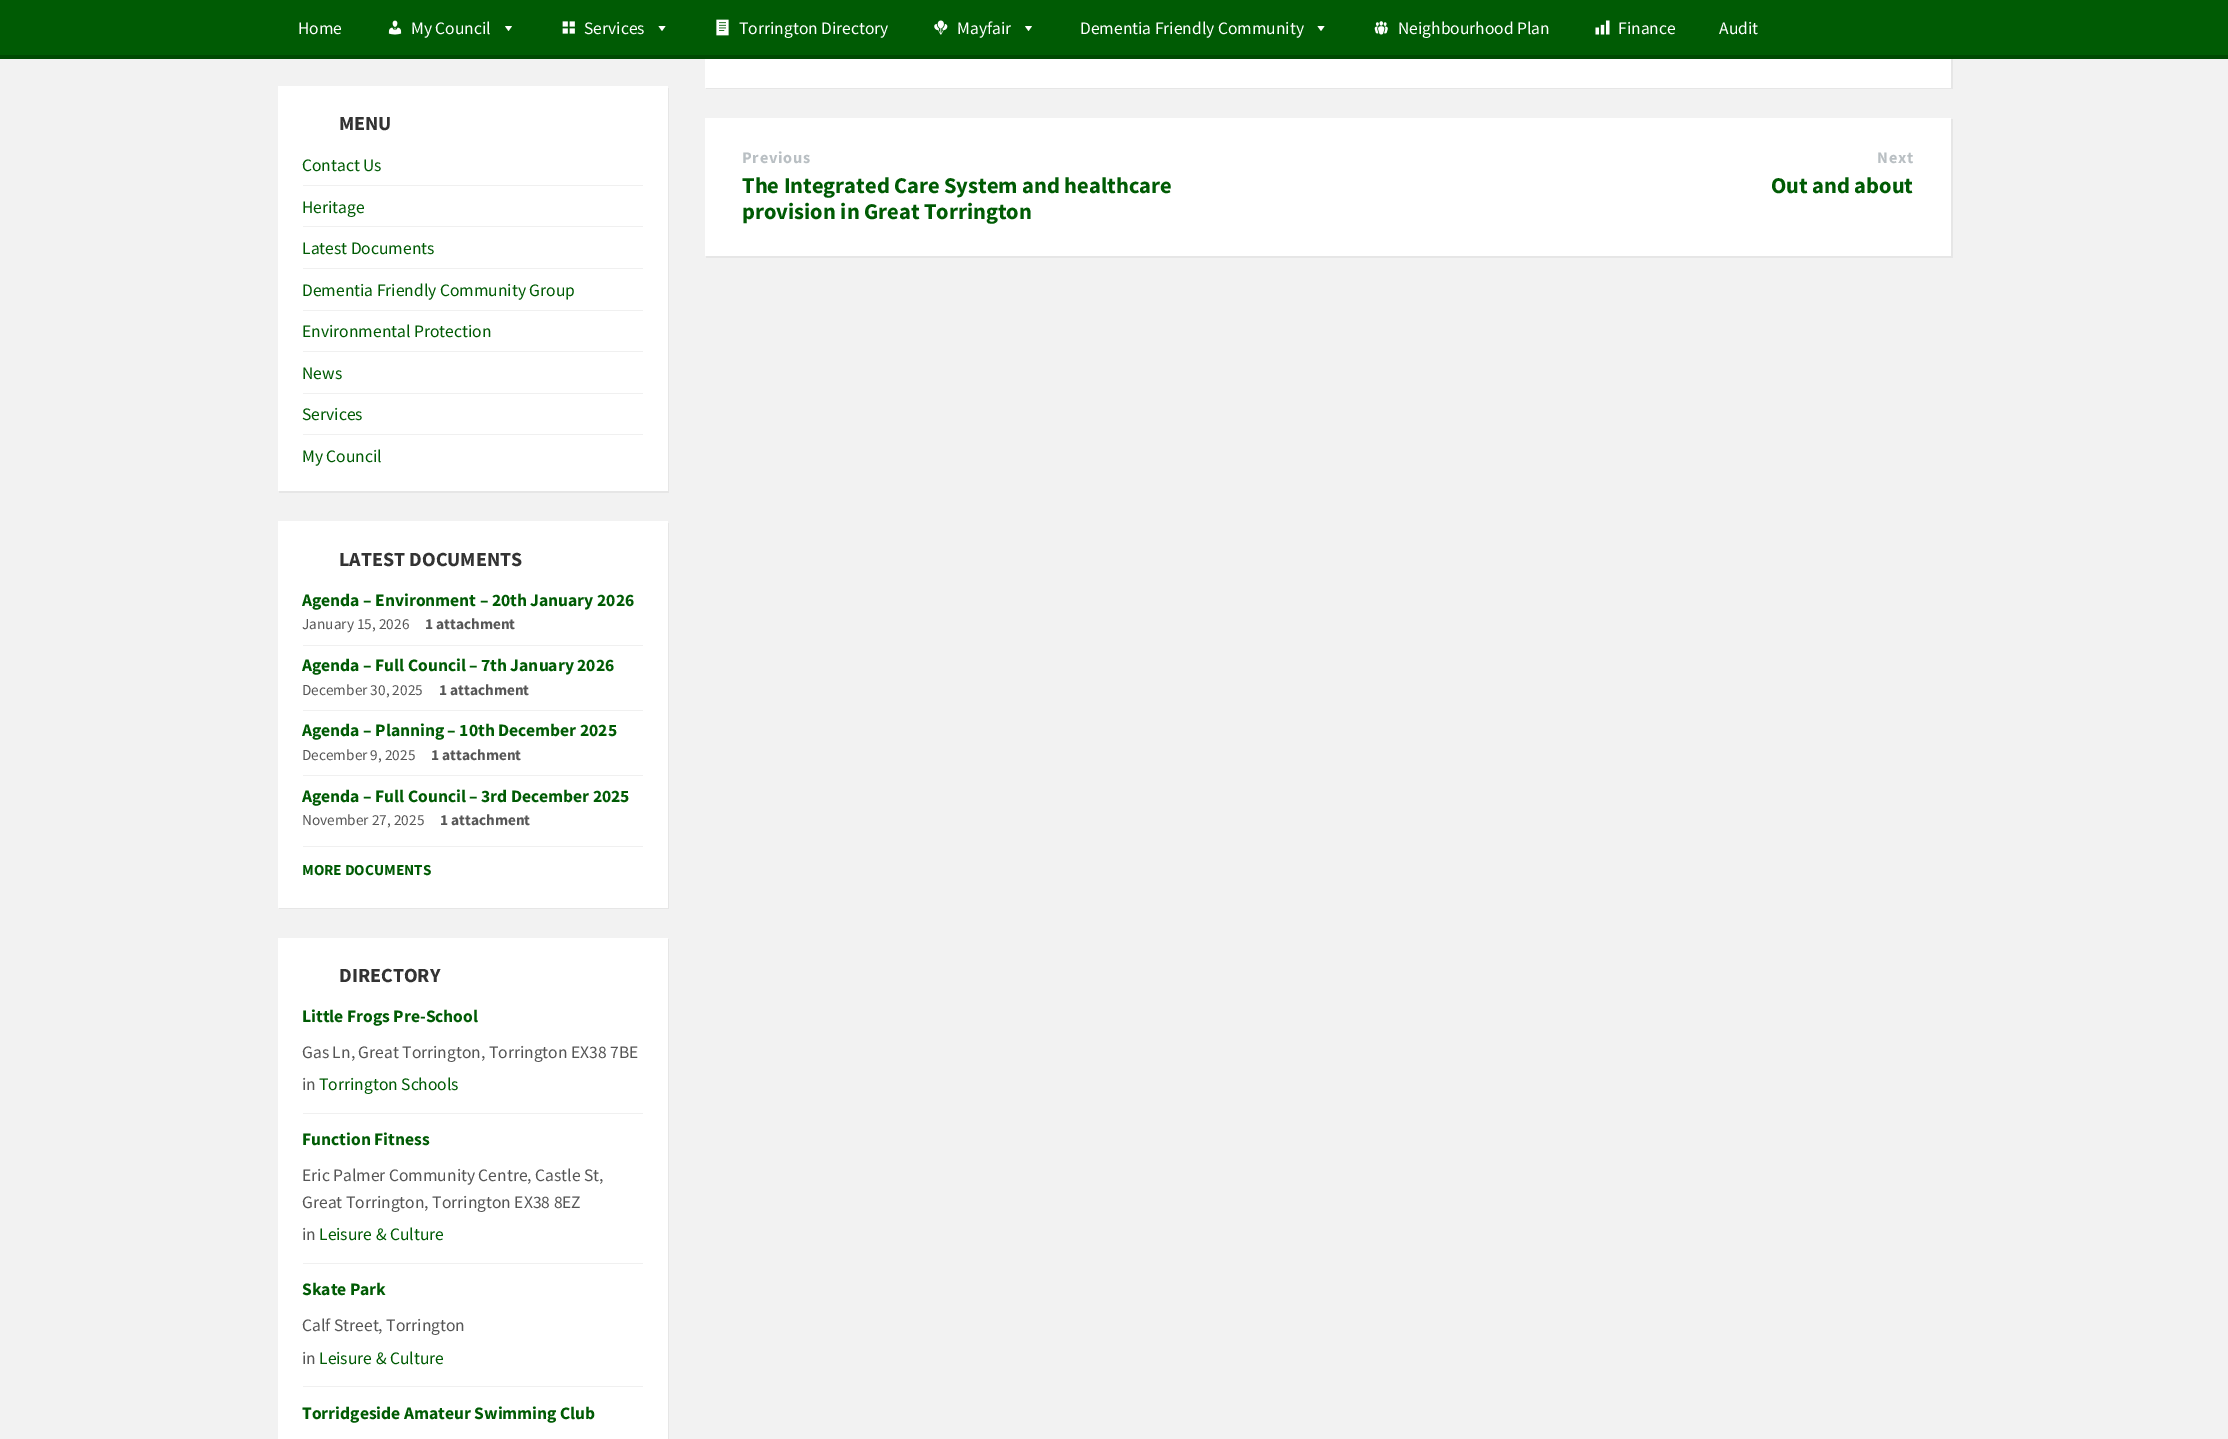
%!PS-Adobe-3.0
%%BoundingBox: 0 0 2228 1439
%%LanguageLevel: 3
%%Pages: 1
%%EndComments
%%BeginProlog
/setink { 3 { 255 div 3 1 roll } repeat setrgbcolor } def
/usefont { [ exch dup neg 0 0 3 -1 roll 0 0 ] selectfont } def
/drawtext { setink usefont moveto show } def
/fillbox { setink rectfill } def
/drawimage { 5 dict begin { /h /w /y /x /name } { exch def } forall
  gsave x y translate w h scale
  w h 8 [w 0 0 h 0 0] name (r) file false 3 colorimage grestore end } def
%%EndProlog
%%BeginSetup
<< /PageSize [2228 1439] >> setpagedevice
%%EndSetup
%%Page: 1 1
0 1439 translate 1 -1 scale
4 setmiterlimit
0 0 2228 1439 242 242 242 fillbox
230 230 230 setink
706 88 moveto 706 89 lineto 1953 89 lineto 1953 -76 lineto 1951 -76 lineto 1951 88 lineto closepath fill
0 0 2228 55 0 91 4 fillbox
0 55 2228 4 0 73 3 fillbox
(Home) 298 34 /SourceSansPro-Regular 17.5 255 255 255 drawtext
(assets/img1.rgb) 388 20 14 15 drawimage
(My Council) 411 34 /SourceSansPro-Regular 17.5 255 255 255 drawtext
512 26 moveto 508.5 31 lineto 505 26 lineto closepath fill
(assets/img2.rgb) 562 21 13 13 drawimage
(Services) 584 34 /SourceSansPro-Regular 17.5 255 255 255 drawtext
665.5 26 moveto 662 31 lineto 658.5 26 lineto closepath fill
(assets/img3.rgb) 716 19 13 17 drawimage
(Torrington Directory) 739 34 /SourceSansPro-Regular 17.5 255 255 255 drawtext
(assets/img4.rgb) 934 20 14 15 drawimage
(Mayfair) 957 34 /SourceSansPro-Regular 17.5 255 255 255 drawtext
1032 26 moveto 1028.5 31 lineto 1025 26 lineto closepath fill
(Dementia Friendly Community) 1080 34 /SourceSansPro-Regular 17.5 255 255 255 drawtext
1324.5 26 moveto 1321 31 lineto 1317.5 26 lineto closepath fill
(assets/img5.rgb) 1374 21 14 14 drawimage
(Neighbourhood Plan) 1398 34 /SourceSansPro-Regular 17.5 255 255 255 drawtext
(assets/img6.rgb) 1595 20 15 15 drawimage
(Finance) 1618 34 /SourceSansPro-Regular 17.5 255 255 255 drawtext
(Audit) 1719 34 /SourceSansPro-Regular 17.5 255 255 255 drawtext
230 230 230 setink
279 491 moveto 279 493 lineto 669 493 lineto 669 88 lineto 668 88 lineto 668 491 lineto closepath fill
278 86 390 405 255 255 255 fillbox
(MENU) 339 130 /SourceSansPro-Bold 20 51 51 51 drawtext
(Contact Us) 302 171 /SourceSansPro-Regular 17.5 0 91 4 drawtext
303 185 340 1 240 240 240 fillbox
(Heritage) 302 213 /SourceSansPro-Regular 17.5 0 91 4 drawtext
303 226 340 1 240 240 240 fillbox
(Latest Documents) 302 254 /SourceSansPro-Regular 17.5 0 91 4 drawtext
303 268 340 1 240 240 240 fillbox
(Dementia Friendly Community Group) 302 296 /SourceSansPro-Regular 17.5 0 91 4 drawtext
303 310 340 1 240 240 240 fillbox
(Environmental Protection) 302 337 /SourceSansPro-Regular 17.5 0 91 4 drawtext
303 351 340 1 240 240 240 fillbox
(News) 302 379 /SourceSansPro-Regular 17.5 0 91 4 drawtext
303 393 340 1 240 240 240 fillbox
(Services) 302 420 /SourceSansPro-Regular 17.5 0 91 4 drawtext
303 434 340 1 240 240 240 fillbox
(My Council) 302 462 /SourceSansPro-Regular 17.5 0 91 4 drawtext
230 230 230 setink
279 908 moveto 279 909 lineto 669 909 lineto 669 523 lineto 668 523 lineto 668 908 lineto closepath fill
278 521 390 387 255 255 255 fillbox
(LATEST DOCUMENTS) 339 566 /SourceSansPro-Bold 20 51 51 51 drawtext
(Agenda – Environment – 20th January 2026) 302 606 /SourceSansPro-Bold 17.5 0 91 4 drawtext
(January 15, 2026) 302 629 /SourceSansPro-Regular 15.25 86 86 86 drawtext
(1 attachment) 425 629 /SourceSansPro-Bold 15.25 86 86 86 drawtext
303 645 340 1 240 240 240 fillbox
(Agenda – Full Council – 7th January 2026) 302 671 /SourceSansPro-Bold 17.5 0 91 4 drawtext
(December 30, 2025) 302 695 /SourceSansPro-Regular 15.25 86 86 86 drawtext
(1 attachment) 439 695 /SourceSansPro-Bold 15.25 86 86 86 drawtext
303 710 340 1 240 240 240 fillbox
(Agenda – Planning – 10th December 2025) 302 736 /SourceSansPro-Bold 17.5 0 91 4 drawtext
(December 9, 2025) 302 760 /SourceSansPro-Regular 15.25 86 86 86 drawtext
(1 attachment) 431 760 /SourceSansPro-Bold 15.25 86 86 86 drawtext
303 775 340 1 240 240 240 fillbox
(Agenda – Full Council – 3rd December 2025) 302 802 /SourceSansPro-Bold 17.5 0 91 4 drawtext
(November 27, 2025) 302 825 /SourceSansPro-Regular 15.25 86 86 86 drawtext
(1 attachment) 440 825 /SourceSansPro-Bold 15.25 86 86 86 drawtext
303 846 340 1 240 240 240 fillbox
(MORE DOCUMENTS) 302 875 /SourceSansPro-Bold 15.25 0 91 4 drawtext
230 230 230 setink
279 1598 moveto 279 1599 lineto 669 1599 lineto 669 939 lineto 668 939 lineto 668 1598 lineto closepath fill
278 938 390 501 255 255 255 fillbox
(DIRECTORY) 339 982 /SourceSansPro-Bold 20 51 51 51 drawtext
(Little Frogs Pre-School) 302 1022 /SourceSansPro-Bold 17.5 0 91 4 drawtext
(Gas Ln, Great Torrington, Torrington EX38 7BE) 302 1058 /SourceSansPro-Regular 17.5 86 86 86 drawtext
(in) 302 1090 /SourceSansPro-Regular 17.5 86 86 86 drawtext
(Torrington Schools) 319 1090 /SourceSansPro-Regular 17.5 0 91 4 drawtext
303 1113 340 1 240 240 240 fillbox
(Function Fitness) 302 1145 /SourceSansPro-Bold 17.5 0 91 4 drawtext
(Eric Palmer Community Centre, Castle St,) 302 1181 /SourceSansPro-Regular 17.5 86 86 86 drawtext
(Great Torrington, Torrington EX38 8EZ) 302 1208 /SourceSansPro-Regular 17.5 86 86 86 drawtext
(in) 302 1240 /SourceSansPro-Regular 17.5 86 86 86 drawtext
(Leisure & Culture) 319 1240 /SourceSansPro-Regular 17.5 0 91 4 drawtext
303 1263 340 1 240 240 240 fillbox
(Skate Park) 302 1295 /SourceSansPro-Bold 17.5 0 91 4 drawtext
(Calf Street, Torrington) 302 1331 /SourceSansPro-Regular 17.5 86 86 86 drawtext
(in) 302 1364 /SourceSansPro-Regular 17.5 86 86 86 drawtext
(Leisure & Culture) 319 1364 /SourceSansPro-Regular 17.5 0 91 4 drawtext
303 1386 340 1 240 240 240 fillbox
(Torridgeside Amateur Swimming Club) 302 1419 /SourceSansPro-Bold 17.5 0 91 4 drawtext
705 59 1246 29 255 255 255 fillbox
230 230 230 setink
706 256 moveto 706 258 lineto 1953 258 lineto 1953 119 lineto 1951 119 lineto 1951 256 lineto closepath fill
705 118 1246 138 255 255 255 fillbox
/SourceSansPro-Bold 16.25 usefont
185 191 195 setink
742 163 moveto 0.75 0 (Previous) ashow
(The Integrated Care System and healthcare) 742 193 /SourceSansPro-Bold 22.5 0 91 4 drawtext
(provision in Great Torrington) 742 219 /SourceSansPro-Bold 22.5 0 91 4 drawtext
/SourceSansPro-Bold 16.25 usefont
185 191 195 setink
1877 163 moveto 0.75 0 (Next) ashow
(Out and about) 1771 193 /SourceSansPro-Bold 22.5 0 91 4 drawtext
showpage
%%EOF
